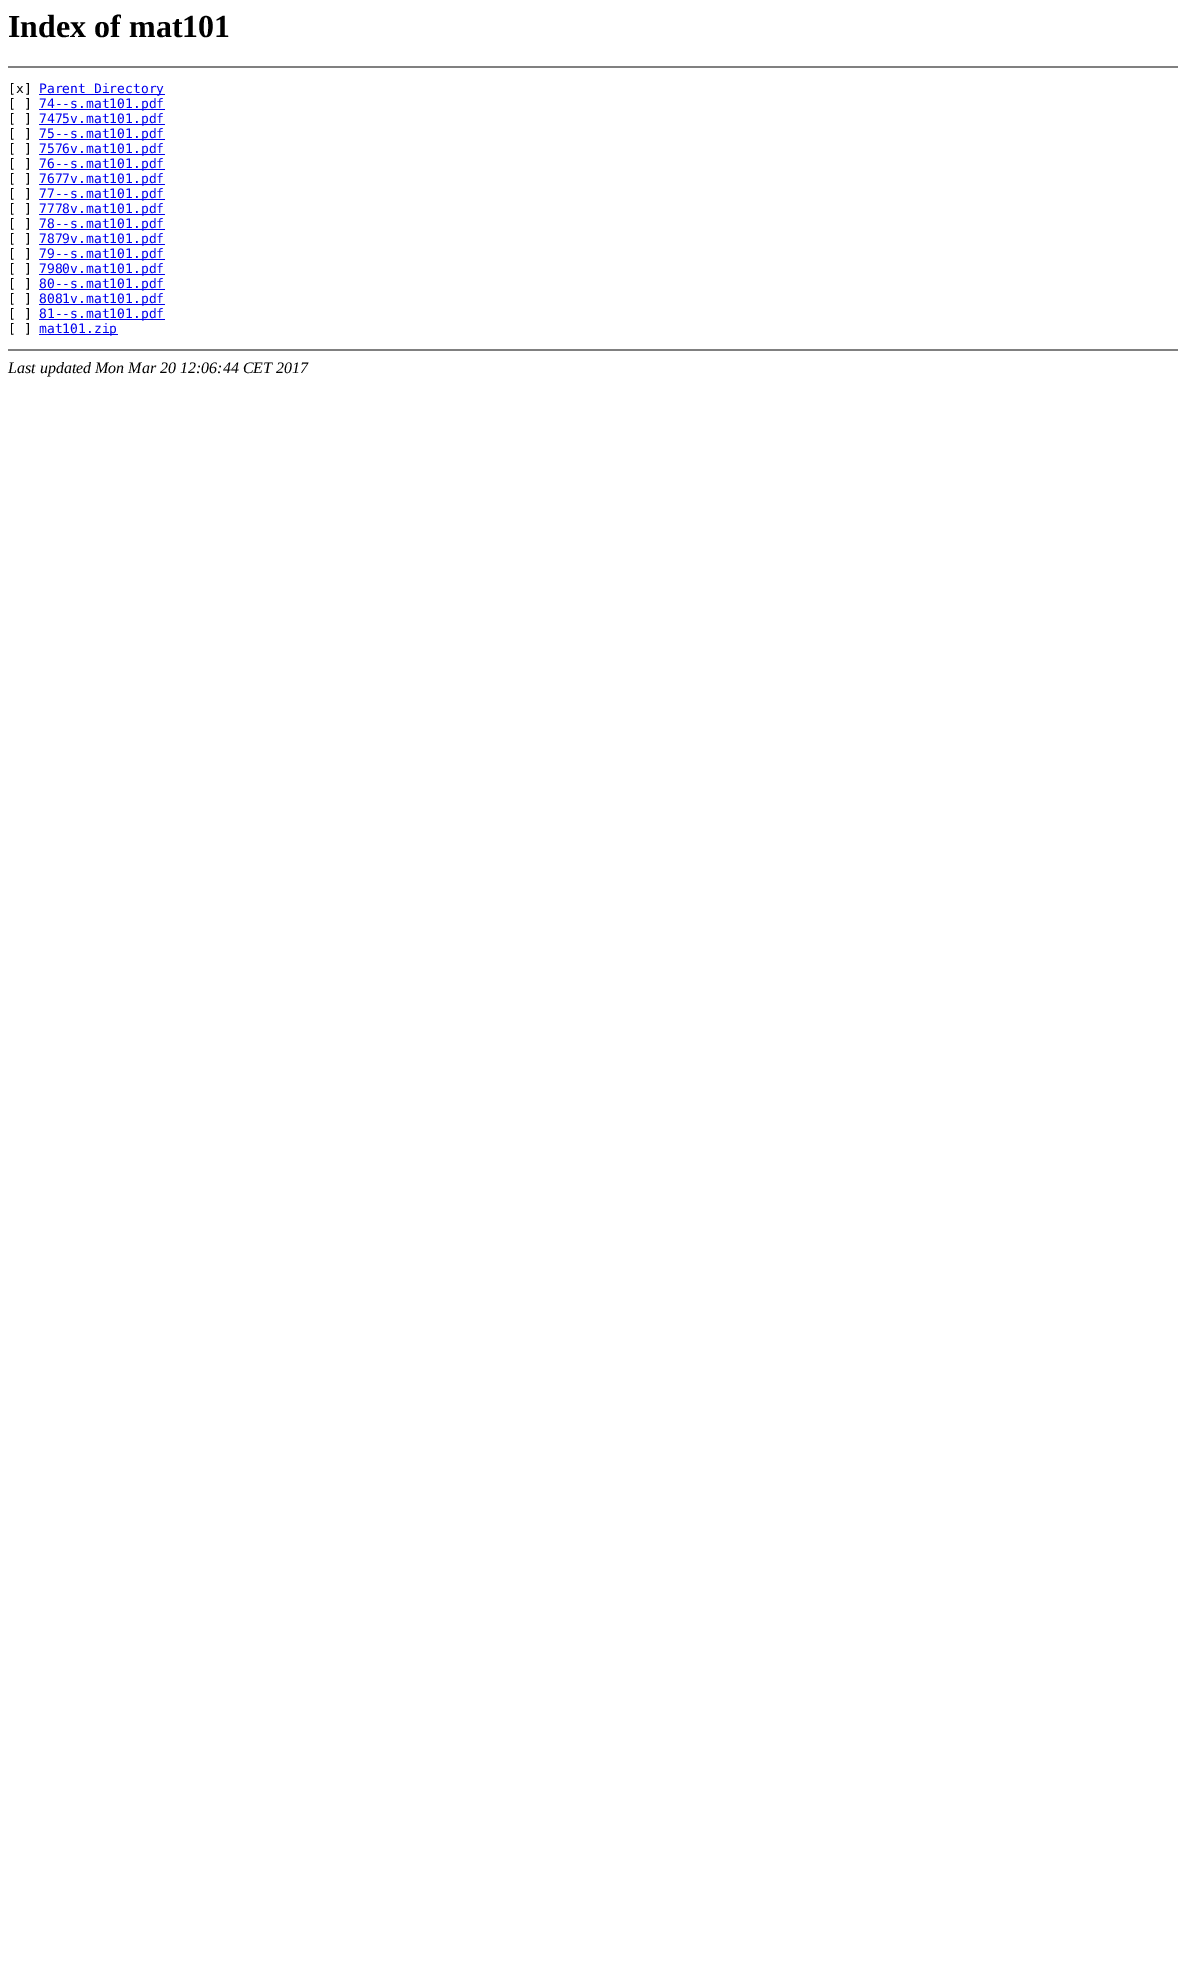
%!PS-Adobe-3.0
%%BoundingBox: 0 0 1186 1965
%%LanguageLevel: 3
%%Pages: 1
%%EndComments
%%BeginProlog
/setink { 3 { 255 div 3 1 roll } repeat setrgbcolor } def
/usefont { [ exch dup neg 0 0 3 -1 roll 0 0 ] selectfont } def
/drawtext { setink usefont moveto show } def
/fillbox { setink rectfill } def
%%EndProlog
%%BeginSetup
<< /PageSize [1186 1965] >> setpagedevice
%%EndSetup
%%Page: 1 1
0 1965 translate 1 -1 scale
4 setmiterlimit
0 0 1186 1965 255 255 255 fillbox
(Index of mat101) 8 37 /LiberationSerif-Bold 32 0 0 0 drawtext
8 66 1170 2 128 128 128 fillbox
([x]) 8 93 /DejaVuSansMono-Regular 13 0 0 0 drawtext
39 94 126 1 0 0 238 fillbox
(Parent Directory) 39 93 /DejaVuSansMono-Regular 13 0 0 238 drawtext
([ ]) 8 108 /DejaVuSansMono-Regular 13 0 0 0 drawtext
39 109 126 1 0 0 238 fillbox
(74--s.mat101.pdf) 39 108 /DejaVuSansMono-Regular 13 0 0 238 drawtext
([ ]) 8 123 /DejaVuSansMono-Regular 13 0 0 0 drawtext
39 124 126 1 0 0 238 fillbox
(7475v.mat101.pdf) 39 123 /DejaVuSansMono-Regular 13 0 0 238 drawtext
([ ]) 8 138 /DejaVuSansMono-Regular 13 0 0 0 drawtext
39 139 126 1 0 0 238 fillbox
(75--s.mat101.pdf) 39 138 /DejaVuSansMono-Regular 13 0 0 238 drawtext
([ ]) 8 153 /DejaVuSansMono-Regular 13 0 0 0 drawtext
39 154 126 1 0 0 238 fillbox
(7576v.mat101.pdf) 39 153 /DejaVuSansMono-Regular 13 0 0 238 drawtext
([ ]) 8 168 /DejaVuSansMono-Regular 13 0 0 0 drawtext
39 169 126 1 0 0 238 fillbox
(76--s.mat101.pdf) 39 168 /DejaVuSansMono-Regular 13 0 0 238 drawtext
([ ]) 8 183 /DejaVuSansMono-Regular 13 0 0 0 drawtext
39 184 126 1 0 0 238 fillbox
(7677v.mat101.pdf) 39 183 /DejaVuSansMono-Regular 13 0 0 238 drawtext
([ ]) 8 198 /DejaVuSansMono-Regular 13 0 0 0 drawtext
39 199 126 1 0 0 238 fillbox
(77--s.mat101.pdf) 39 198 /DejaVuSansMono-Regular 13 0 0 238 drawtext
([ ]) 8 213 /DejaVuSansMono-Regular 13 0 0 0 drawtext
39 214 126 1 0 0 238 fillbox
(7778v.mat101.pdf) 39 213 /DejaVuSansMono-Regular 13 0 0 238 drawtext
([ ]) 8 228 /DejaVuSansMono-Regular 13 0 0 0 drawtext
39 229 126 1 0 0 238 fillbox
(78--s.mat101.pdf) 39 228 /DejaVuSansMono-Regular 13 0 0 238 drawtext
([ ]) 8 243 /DejaVuSansMono-Regular 13 0 0 0 drawtext
39 244 126 1 0 0 238 fillbox
(7879v.mat101.pdf) 39 243 /DejaVuSansMono-Regular 13 0 0 238 drawtext
([ ]) 8 258 /DejaVuSansMono-Regular 13 0 0 0 drawtext
39 259 126 1 0 0 238 fillbox
(79--s.mat101.pdf) 39 258 /DejaVuSansMono-Regular 13 0 0 238 drawtext
([ ]) 8 273 /DejaVuSansMono-Regular 13 0 0 0 drawtext
39 274 126 1 0 0 238 fillbox
(7980v.mat101.pdf) 39 273 /DejaVuSansMono-Regular 13 0 0 238 drawtext
([ ]) 8 288 /DejaVuSansMono-Regular 13 0 0 0 drawtext
39 289 126 1 0 0 238 fillbox
(80--s.mat101.pdf) 39 288 /DejaVuSansMono-Regular 13 0 0 238 drawtext
([ ]) 8 303 /DejaVuSansMono-Regular 13 0 0 0 drawtext
39 304 126 1 0 0 238 fillbox
(8081v.mat101.pdf) 39 303 /DejaVuSansMono-Regular 13 0 0 238 drawtext
([ ]) 8 318 /DejaVuSansMono-Regular 13 0 0 0 drawtext
39 319 126 1 0 0 238 fillbox
(81--s.mat101.pdf) 39 318 /DejaVuSansMono-Regular 13 0 0 238 drawtext
([ ]) 8 333 /DejaVuSansMono-Regular 13 0 0 0 drawtext
39 334 79 1 0 0 238 fillbox
(mat101.zip) 39 333 /DejaVuSansMono-Regular 13 0 0 238 drawtext
8 349 1170 2 128 128 128 fillbox
(Last updated Mon Mar 20 12:06:44 CET 2017) 8 373 /LiberationSerif-Italic 16 0 0 0 drawtext
showpage
%%EOF
